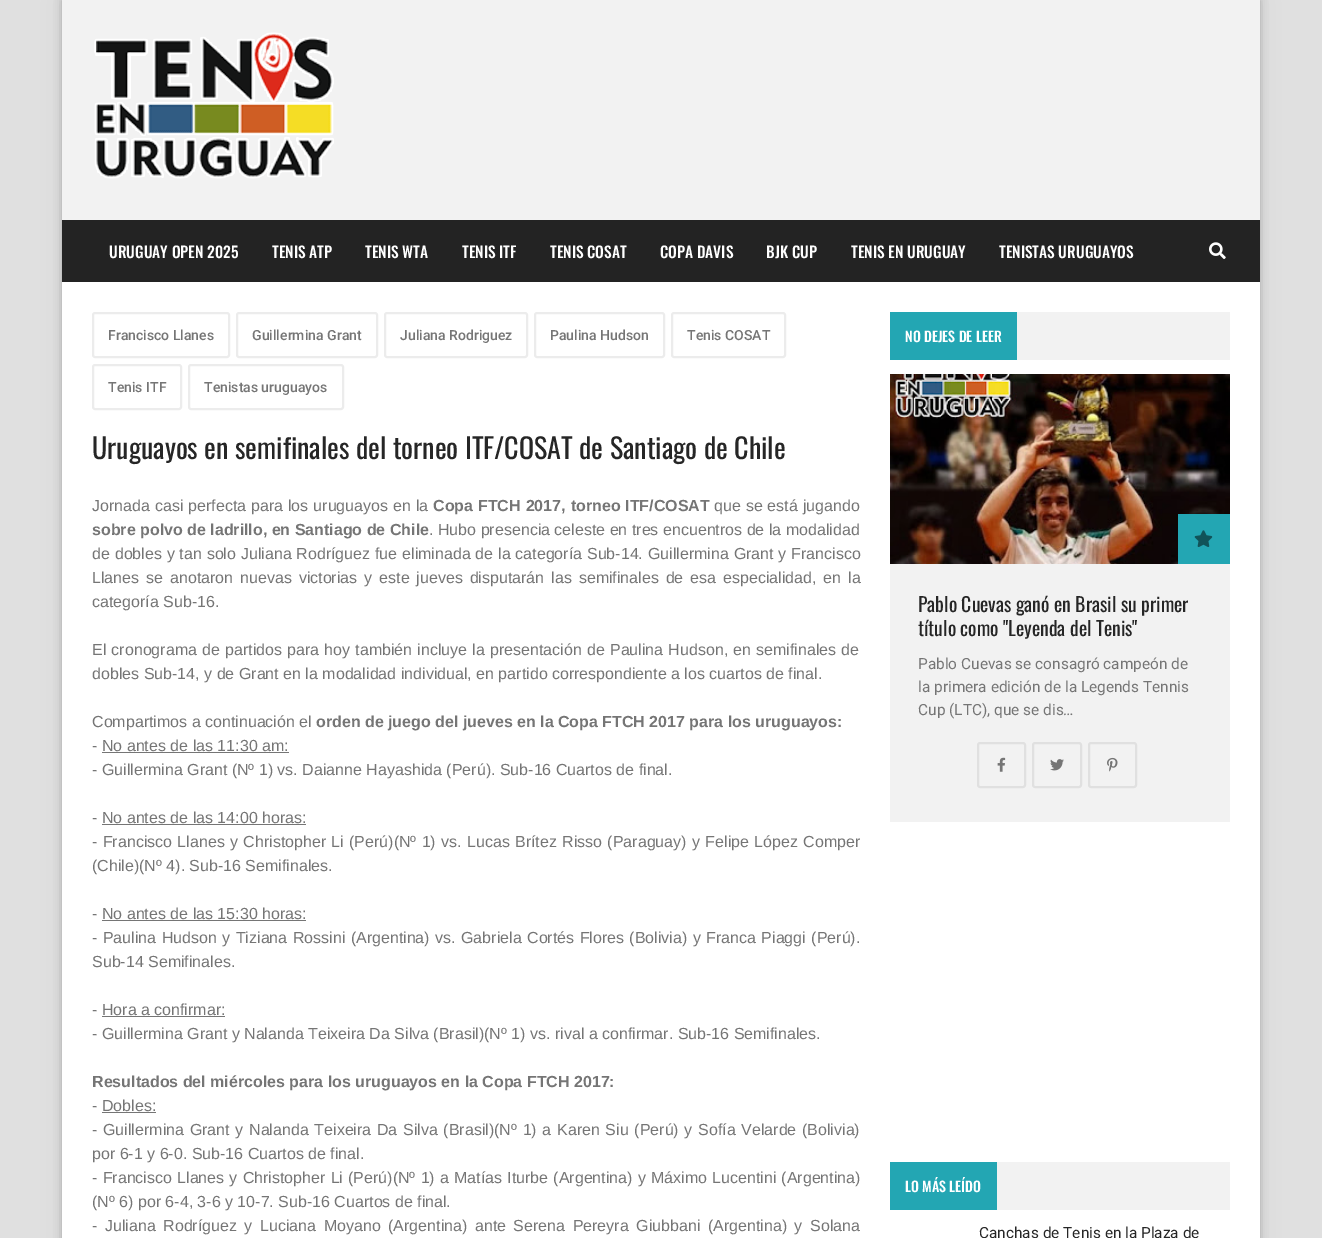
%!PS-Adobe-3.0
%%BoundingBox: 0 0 1322 1238
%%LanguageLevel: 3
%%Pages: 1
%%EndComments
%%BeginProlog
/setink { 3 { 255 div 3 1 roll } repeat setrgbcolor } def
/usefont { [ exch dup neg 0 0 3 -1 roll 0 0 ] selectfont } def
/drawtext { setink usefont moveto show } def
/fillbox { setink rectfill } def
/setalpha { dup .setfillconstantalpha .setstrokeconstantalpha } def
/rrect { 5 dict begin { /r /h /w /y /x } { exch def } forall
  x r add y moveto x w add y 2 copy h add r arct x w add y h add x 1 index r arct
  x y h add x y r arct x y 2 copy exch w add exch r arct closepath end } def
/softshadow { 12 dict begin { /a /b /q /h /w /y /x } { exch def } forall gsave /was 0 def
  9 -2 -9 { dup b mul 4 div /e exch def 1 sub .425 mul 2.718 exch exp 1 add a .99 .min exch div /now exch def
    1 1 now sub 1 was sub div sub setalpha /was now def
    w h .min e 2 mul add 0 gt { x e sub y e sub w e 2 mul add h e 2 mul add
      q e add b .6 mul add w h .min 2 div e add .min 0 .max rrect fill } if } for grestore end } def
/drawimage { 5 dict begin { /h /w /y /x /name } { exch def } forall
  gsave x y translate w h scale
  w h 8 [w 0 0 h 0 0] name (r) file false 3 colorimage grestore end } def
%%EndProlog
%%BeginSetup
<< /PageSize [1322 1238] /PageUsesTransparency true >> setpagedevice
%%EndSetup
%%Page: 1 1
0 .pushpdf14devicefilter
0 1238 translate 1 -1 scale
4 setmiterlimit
0 0 1322 1238 224 224 224 fillbox
0 0 0 setink
62 0 1198 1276 0 12.5 0.05 softshadow
62 0 1198 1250 0 4 0.2 softshadow
62 0 1198 220 242 242 242 fillbox
(assets/img1.rgb) 94 32 240 147 drawimage
62 220 1198 62 35 35 35 fillbox
(URUGUAY OPEN 2025) 109 258 /Oswald-Medium 15.4 255 255 255 drawtext
(TENIS ATP) 272 258 /Oswald-Medium 15.4 255 255 255 drawtext
(TENIS WTA) 365 258 /Oswald-Medium 15.4 255 255 255 drawtext
(TENIS ITF) 462 258 /Oswald-Medium 15.4 255 255 255 drawtext
(TENIS COSAT) 550 258 /Oswald-Medium 15.4 255 255 255 drawtext
(COPA DAVIS) 660 258 /Oswald-Medium 15.4 255 255 255 drawtext
(BJK CUP) 766 258 /Oswald-Medium 15.4 255 255 255 drawtext
(TENIS EN URUGUAY) 851 258 /Oswald-Medium 15.4 255 255 255 drawtext
(TENISTAS URUGUAYOS) 999 258 /Oswald-Medium 15.4 255 255 255 drawtext
(assets/img2.rgb) 1209 242 17 17 drawimage
62 282 1198 956 255 255 255 fillbox
236 236 236 setink
2 setlinewidth
93 313 136 44 2 rrect stroke
(Francisco Llanes) 108 340 /Roboto-Medium 14 117 117 117 drawtext
236 236 236 setink
237 313 140 44 2 rrect stroke
(Guillermina Grant) 252 340 /Roboto-Medium 14 117 117 117 drawtext
236 236 236 setink
385 313 142 44 2 rrect stroke
(Juliana Rodriguez) 400 340 /Roboto-Medium 14 117 117 117 drawtext
236 236 236 setink
535 313 129 44 2 rrect stroke
(Paulina Hudson) 550 340 /Roboto-Medium 14 117 117 117 drawtext
236 236 236 setink
672 313 113 44 2 rrect stroke
(Tenis COSAT) 687 340 /Roboto-Medium 14 117 117 117 drawtext
236 236 236 setink
93 365 88 44 2 rrect stroke
(Tenis ITF) 108 392 /Roboto-Medium 14 117 117 117 drawtext
236 236 236 setink
189 365 154 44 2 rrect stroke
(Tenistas uruguayos) 204 392 /Roboto-Medium 14 117 117 117 drawtext
(Uruguayos en semifinales del torneo ITF/COSAT de Santiago de Chile) 92 459 /Oswald-Regular 28 38 38 38 drawtext
/LiberationSans-Regular 16 usefont
117 117 117 setink
92 511 moveto 0.5 0 32 (Jornada casi perfecta para los uruguayos en la) widthshow
/LiberationSans-Bold 16 usefont
433 511 moveto 0.5 0 32 (Copa FTCH 2017, torneo ITF/COSAT) widthshow
/LiberationSans-Regular 16 usefont
714 511 moveto 0.5 0 32 (que se está jugando) widthshow
(sobre polvo de ladrillo, en Santiago de Chile) 92 535 /LiberationSans-Bold 16 117 117 117 drawtext
(. Hubo presencia celeste en tres encuentros de la modalidad) 429 535 /LiberationSans-Regular 16 117 117 117 drawtext
92 559 moveto 0.4 0 32 (de dobles y tan solo Juliana Rodríguez fue eliminada de la categoría Sub-14. Guillermina Grant y Francisco) widthshow
92 583 moveto 2.5 0 32 (Llanes se anotaron nuevas victorias y este jueves disputarán las semifinales de esa especialidad, en la) widthshow
(categoría Sub-16.) 92 607 /LiberationSans-Regular 16 117 117 117 drawtext
92 655 moveto 0.75 0 32 (El cronograma de partidos para hoy también incluye la presentación de Paulina Hudson, en semifinales de) widthshow
(dobles Sub-14, y de Grant en la modalidad individual, en partido correspondiente a los cuartos de final.) 92 679 /LiberationSans-Regular 16 117 117 117 drawtext
(Compartimos a continuación el) 92 727 /LiberationSans-Regular 16 117 117 117 drawtext
(orden de juego del jueves en la Copa FTCH 2017 para los uruguayos:) 316 727 /LiberationSans-Bold 16 117 117 117 drawtext
(- No antes de las 11:30 am:) 92 751 /LiberationSans-Regular 16 117 117 117 drawtext
102 752 187 1 117 117 117 fillbox
(- Guillermina Grant \(Nº 1\) vs. Daianne Hayashida \(Perú\). Sub-16 Cuartos de final.) 92 775 /LiberationSans-Regular 16 117 117 117 drawtext
(- No antes de las 14:00 horas:) 92 823 /LiberationSans-Regular 16 117 117 117 drawtext
102 824 204 1 117 117 117 fillbox
92 847 moveto 0.9 0 32 (- Francisco Llanes y Christopher Li \(Perú\)\(Nº 1\) vs. Lucas Brítez Risso \(Paraguay\) y Felipe López Comper) widthshow
(\(Chile\)\(Nº 4\). Sub-16 Semifinales.) 92 871 /LiberationSans-Regular 16 117 117 117 drawtext
(- No antes de las 15:30 horas:) 92 919 /LiberationSans-Regular 16 117 117 117 drawtext
102 920 204 1 117 117 117 fillbox
92 943 moveto 1 0 32 (- Paulina Hudson y Tiziana Rossini \(Argentina\) vs. Gabriela Cortés Flores \(Bolivia\) y Franca Piaggi \(Perú\).) widthshow
(Sub-14 Semifinales.) 92 967 /LiberationSans-Regular 16 117 117 117 drawtext
(- Hora a confirmar:) 92 1015 /LiberationSans-Regular 16 117 117 117 drawtext
102 1016 123 1 117 117 117 fillbox
(- Guillermina Grant y Nalanda Teixeira Da Silva \(Brasil\)\(Nº 1\) vs. rival a confirmar. Sub-16 Semifinales.) 92 1039 /LiberationSans-Regular 16 117 117 117 drawtext
(Resultados del miércoles para los uruguayos en la Copa FTCH 2017:) 92 1087 /LiberationSans-Bold 16 117 117 117 drawtext
(- Dobles:) 92 1111 /LiberationSans-Regular 16 117 117 117 drawtext
102 1112 54 1 117 117 117 fillbox
92 1135 moveto 1.25 0 32 (- Guillermina Grant y Nalanda Teixeira Da Silva \(Brasil\)\(Nº 1\) a Karen Siu \(Perú\) y Sofía Velarde \(Bolivia\)) widthshow
(por 6-1 y 6-0. Sub-16 Cuartos de final.) 92 1159 /LiberationSans-Regular 16 117 117 117 drawtext
92 1183 moveto 0.75 0 32 (- Francisco Llanes y Christopher Li \(Perú\)\(Nº 1\) a Matías Iturbe \(Argentina\) y Máximo Lucentini \(Argentina\)) widthshow
(\(Nº 6\) por 6-4, 3-6 y 10-7. Sub-16 Cuartos de final.) 92 1207 /LiberationSans-Regular 16 117 117 117 drawtext
92 1231 moveto 3.1 0 32 (- Juliana Rodríguez y Luciana Moyano \(Argentina\) ante Serena Pereyra Giubbani \(Argentina\) y Solana) widthshow
1017 312 213 48 242 242 242 fillbox
890 312 127 48 35 166 179 fillbox
(NO DEJES DE LEER) 905 342 /Oswald-Medium 14 255 255 255 drawtext
890 564 340 258 242 242 242 fillbox
(assets/img3.rgb) 890 374 340 190 drawimage
1178 514 52 50 35 166 179 fillbox
(assets/img4.rgb) 1194 530 19 17 drawimage
(Pablo Cuevas ganó en Brasil su primer) 918 612 /Oswald-Regular 19.6 38 38 38 drawtext
(título como "Leyenda del Tenis") 918 636 /Oswald-Regular 19.6 38 38 38 drawtext
(Pablo Cuevas se consagró campeón de) 918 669 /Roboto-Regular 15.4 117 117 117 drawtext
(la primera edición de la Legends Tennis) 918 692 /Roboto-Regular 15.4 117 117 117 drawtext
(Cup \(LTC\), que se dis…) 918 715 /Roboto-Regular 15.4 117 117 117 drawtext
224 224 224 setink
978 743 47 44 2 rrect stroke
(assets/img5.rgb) 997 757 9 15 drawimage
1033 743 48 44 2 rrect stroke
(assets/img6.rgb) 1050 759 14 12 drawimage
1089 743 47 44 2 rrect stroke
(assets/img7.rgb) 1107 757 11 15 drawimage
997 1162 233 48 242 242 242 fillbox
890 1162 107 48 35 166 179 fillbox
(LO MÁS LEÍDO) 905 1192 /Oswald-Medium 14 255 255 255 drawtext
(Canchas de Tenis en la Plaza de) 979 1238 /Roboto-Regular 15.4 38 38 38 drawtext
.poppdf14devicefilter showpage
%%EOF
